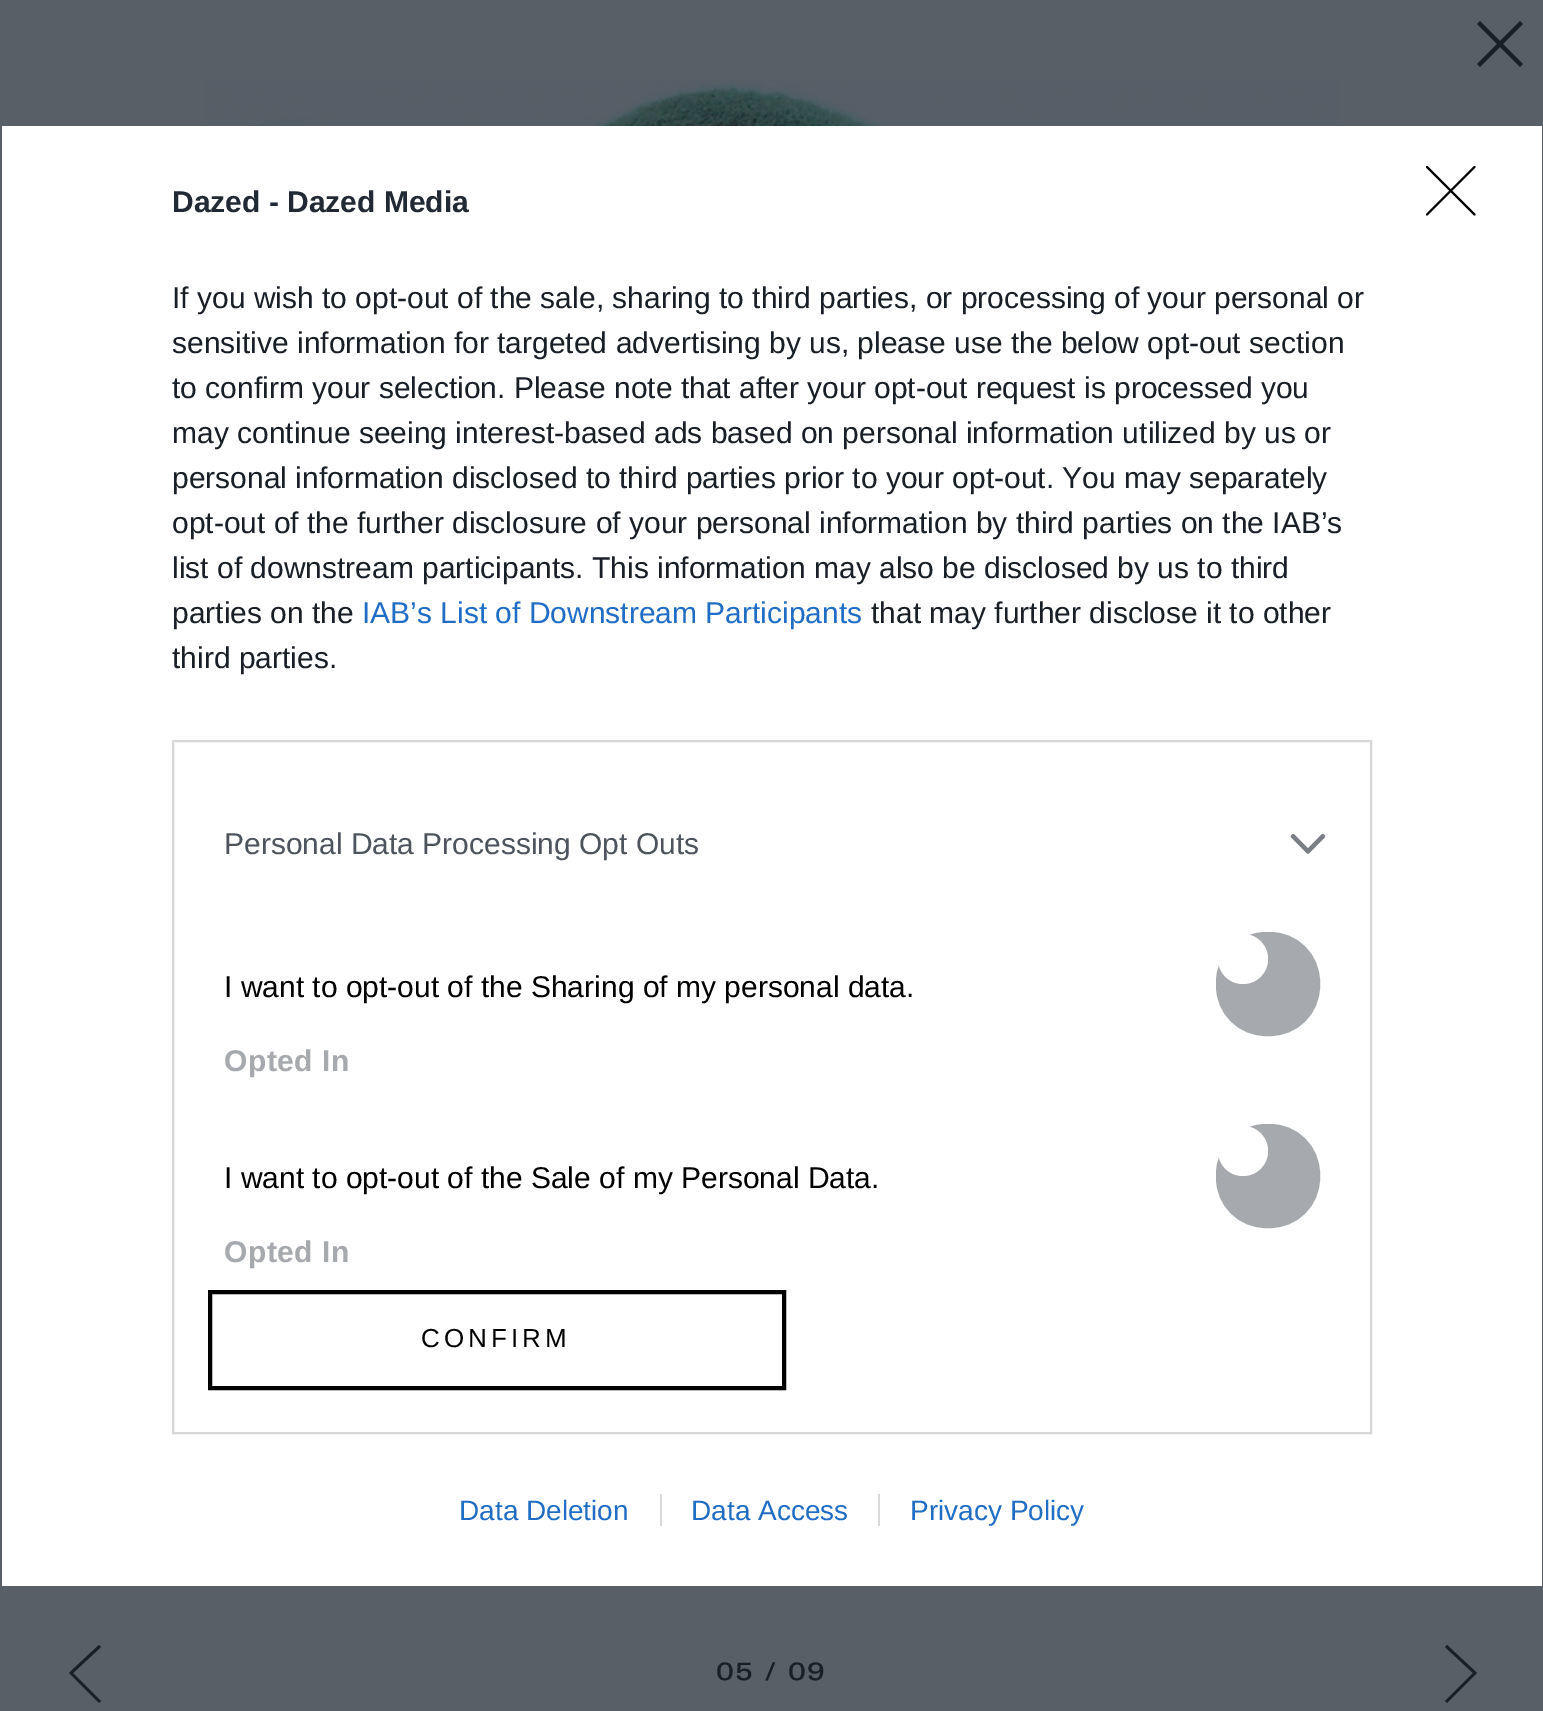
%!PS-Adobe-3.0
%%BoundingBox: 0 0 1543 1711
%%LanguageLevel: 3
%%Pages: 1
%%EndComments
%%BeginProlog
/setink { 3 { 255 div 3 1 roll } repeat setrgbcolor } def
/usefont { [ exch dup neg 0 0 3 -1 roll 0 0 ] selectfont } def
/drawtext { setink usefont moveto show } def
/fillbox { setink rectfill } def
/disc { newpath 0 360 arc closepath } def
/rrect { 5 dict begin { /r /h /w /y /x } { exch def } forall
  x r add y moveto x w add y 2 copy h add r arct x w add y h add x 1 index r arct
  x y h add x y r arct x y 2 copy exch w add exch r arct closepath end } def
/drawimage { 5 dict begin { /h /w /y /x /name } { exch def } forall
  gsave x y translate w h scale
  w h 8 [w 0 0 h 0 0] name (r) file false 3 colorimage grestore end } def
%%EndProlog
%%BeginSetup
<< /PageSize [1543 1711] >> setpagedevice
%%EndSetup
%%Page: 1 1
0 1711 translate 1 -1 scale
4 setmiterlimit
0 0 1543 1711 89 95 103 fillbox
2 126 1540 1460 255 255 255 fillbox
(Dazed - Dazed Media) 172 212 /LiberationSans-Bold 30 33 41 52 drawtext
(If you wish to opt-out of the sale, sharing to third parties, or processing of your personal or) 172 308 /LiberationSans-Regular 30 25 31 39 drawtext
(sensitive information for targeted advertising by us, please use the below opt-out section) 172 353 /LiberationSans-Regular 30 25 31 39 drawtext
(to confirm your selection. Please note that after your opt-out request is processed you) 172 398 /LiberationSans-Regular 30 25 31 39 drawtext
(may continue seeing interest-based ads based on personal information utilized by us or) 172 443 /LiberationSans-Regular 30 25 31 39 drawtext
(personal information disclosed to third parties prior to your opt-out. You may separately) 172 488 /LiberationSans-Regular 30 25 31 39 drawtext
(opt-out of the further disclosure of your personal information by third parties on the IAB’s) 172 533 /LiberationSans-Regular 30 25 31 39 drawtext
(list of downstream participants. This information may also be disclosed by us to third) 172 578 /LiberationSans-Regular 30 25 31 39 drawtext
(parties on the) 172 623 /LiberationSans-Regular 30 25 31 39 drawtext
(IAB’s List of Downstream Participants) 362 623 /LiberationSans-Regular 30 32 109 197 drawtext
(that may further disclose it to other) 871 623 /LiberationSans-Regular 30 25 31 39 drawtext
(third parties.) 172 668 /LiberationSans-Regular 30 25 31 39 drawtext
216 216 216 setink
2 setlinewidth
173 741 1198 692 rectstroke
(Personal Data Processing Opt Outs) 224 854 /LiberationSans-Regular 30 77 84 93 drawtext
(assets/img1.rgb) 1290 833 36 21 drawimage
(I want to opt-out of the Sharing of my personal data.) 224 997 /LiberationSans-Regular 30 0 0 0 drawtext
166 169 174 setink
1217 933 102 102 49 rrect gsave fill grestore
stroke
255 255 255 setink
1243 959 25 disc fill
/LiberationSans-Bold 30 usefont
166 169 174 setink
224 1071 moveto 0.5 0 (Opted In) ashow
(I want to opt-out of the Sale of my Personal Data.) 224 1188 /LiberationSans-Regular 30 0 0 0 drawtext
166 169 174 setink
1217 1125 102 102 49 rrect gsave fill grestore
stroke
255 255 255 setink
1243 1151 25 disc fill
/LiberationSans-Bold 30 usefont
166 169 174 setink
224 1262 moveto 0.5 0 (Opted In) ashow
0 0 0 setink
4 setlinewidth
210 1292 574 96 rectstroke
/LiberationSans-Regular 26 usefont
421 1347 moveto 4 0 (CONFIRM) ashow
2.1 setlinewidth
1 setlinecap
1 setlinejoin
1427 167 moveto 1474.5 214.5 lineto 1474.5 167 moveto 1427 214.5 lineto stroke
(Data Deletion) 459 1520 /LiberationSans-Regular 28 32 109 197 drawtext
(Data Access) 691 1520 /LiberationSans-Regular 28 32 109 197 drawtext
660 1494 2 32 216 216 216 fillbox
(Privacy Policy) 910 1520 /LiberationSans-Regular 28 32 109 197 drawtext
878 1494 2 32 216 216 216 fillbox
(assets/img2.rgb) 206 80 1132 46 drawimage
25 31 39 setink
1520 21 moveto 1523 24 lineto 1480 67 lineto 1477 64 lineto closepath eofill
1523 64 moveto 1520 67 lineto 1477 24 lineto 1480 21 lineto closepath eofill
71 1671 moveto 99 1645 lineto 101 1647 lineto 73 1673 lineto 101 1701 lineto 99 1703 lineto 69 1673 lineto closepath fill
/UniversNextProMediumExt-Regular 24 usefont
716 1680 moveto 1.5 0 (05 / 09) ashow
1473 1673 moveto 1445 1647 lineto 1447 1645 lineto 1477 1673 lineto 1447 1703 lineto 1445 1701 lineto closepath fill
showpage
%%EOF
